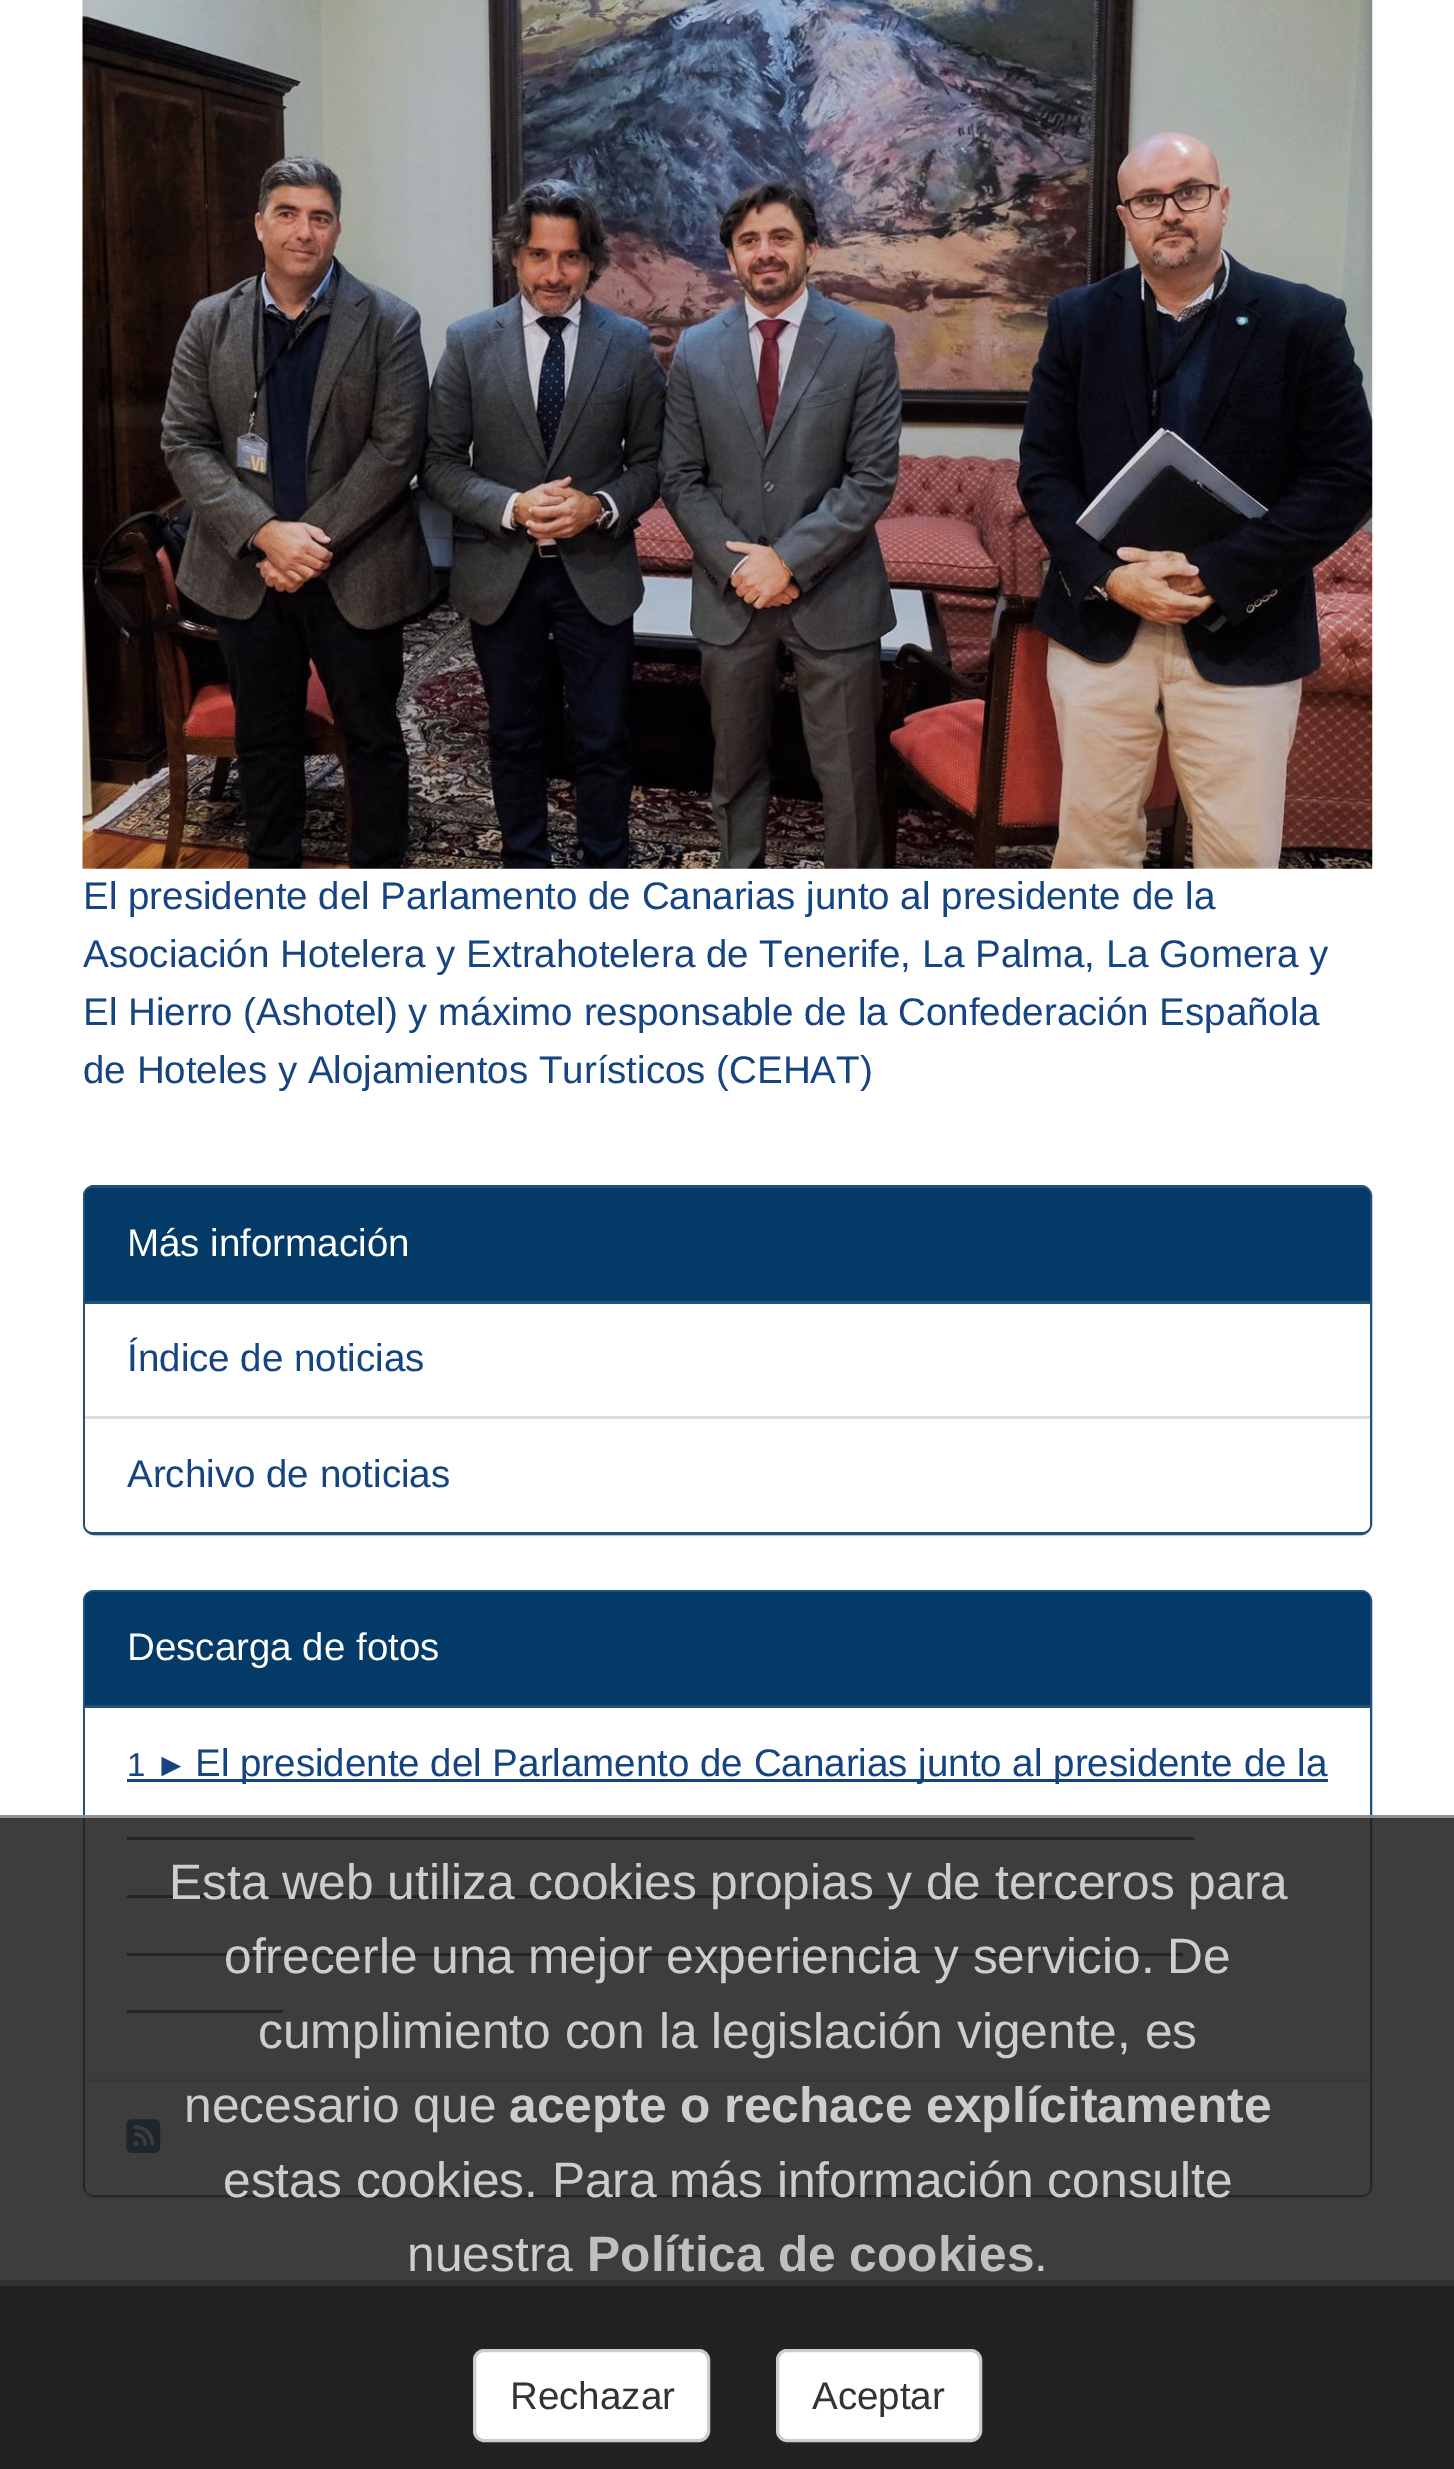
%!PS-Adobe-3.0
%%BoundingBox: 0 0 1454 2469
%%LanguageLevel: 3
%%Pages: 1
%%EndComments
%%BeginProlog
/setink { 3 { 255 div 3 1 roll } repeat setrgbcolor } def
/usefont { [ exch dup neg 0 0 3 -1 roll 0 0 ] selectfont } def
/drawtext { setink usefont moveto show } def
/fillbox { setink rectfill } def
/setalpha { dup .setfillconstantalpha .setstrokeconstantalpha } def
/rrect { 5 dict begin { /r /h /w /y /x } { exch def } forall
  x r add y moveto x w add y 2 copy h add r arct x w add y h add x 1 index r arct
  x y h add x y r arct x y 2 copy exch w add exch r arct closepath end } def
/softshadow { 12 dict begin { /a /b /q /h /w /y /x } { exch def } forall gsave /was 0 def
  9 -2 -9 { dup b mul 4 div /e exch def 1 sub .425 mul 2.718 exch exp 1 add a .99 .min exch div /now exch def
    1 1 now sub 1 was sub div sub setalpha /was now def
    w h .min e 2 mul add 0 gt { x e sub y e sub w e 2 mul add h e 2 mul add
      q e add b .6 mul add w h .min 2 div e add .min 0 .max rrect fill } if } for grestore end } def
/drawimage { 5 dict begin { /h /w /y /x /name } { exch def } forall
  gsave x y translate w h scale
  w h 8 [w 0 0 h 0 0] name (r) file false 3 colorimage grestore end } def
%%EndProlog
%%BeginSetup
<< /PageSize [1454 2469] /PageUsesTransparency true >> setpagedevice
%%EndSetup
%%Page: 1 1
0 .pushpdf14devicefilter
0 2469 translate 1 -1 scale
4 setmiterlimit
0 0 1454 2469 255 255 255 fillbox
(assets/img1.rgb) 82 0 1291 869 drawimage
(El presidente del Parlamento de Canarias junto al presidente de la) 83 909 /LiberationSans-Regular 38.5 21 68 129 drawtext
(Asociación Hotelera y Extrahotelera de Tenerife, La Palma, La Gomera y) 83 967 /LiberationSans-Regular 38.5 21 68 129 drawtext
(El Hierro \(Ashotel\) y máximo responsable de la Confederación Española) 83 1025 /LiberationSans-Regular 38.5 21 68 129 drawtext
(de Hoteles y Alojamientos Turísticos \(CEHAT\)) 83 1083 /LiberationSans-Regular 38.5 21 68 129 drawtext
0 0 0 setink
83 1188 1289 349 11 1.5 0.05 softshadow
33 80 120 setink
3 setlinewidth
84.5 1186.5 1286 347 9.5 rrect stroke
4 58 104 setink
93 1188 moveto 1362 1188 lineto 1366.5 1188 1370 1191.5 1370 1196 curveto 1370 1304 lineto 85 1304 lineto 85 1196 lineto 85 1191.5 88.5 1188 93 1188 curveto closepath fill
85 1301 1285 3 33 80 120 fillbox
(Más información) 127 1256 /LiberationSans-Regular 38.5 255 255 255 drawtext
85 1304 1285 112 255 255 255 fillbox
(Índice de noticias) 127 1371 /LiberationSans-Regular 38.5 21 68 129 drawtext
255 255 255 setink
85 1416 moveto 1370 1416 lineto 1370 1524 lineto 1370 1528.5 1366.5 1532 1362 1532 curveto 93 1532 lineto 88.5 1532 85 1528.5 85 1524 curveto closepath fill
85 1416 1285 3 221 221 221 fillbox
(Archivo de noticias) 127 1487 /LiberationSans-Regular 38.5 21 68 129 drawtext
0 0 0 setink
83 1592 1289 608 11 1.5 0.05 softshadow
33 80 120 setink
84.5 1591.5 1286 604 9.5 rrect stroke
4 58 104 setink
93 1592 moveto 1362 1592 lineto 1366.5 1592 1370 1595.5 1370 1600 curveto 1370 1708 lineto 85 1708 lineto 85 1600 lineto 85 1595.5 88.5 1592 93 1592 curveto closepath fill
85 1705 1285 3 33 80 120 fillbox
(Descarga de fotos) 127 1660 /LiberationSans-Regular 38.5 255 255 255 drawtext
85 1708 1285 371 255 255 255 fillbox
(1 ►) 127 1776 /LiberationSans-Regular 33 21 68 129 drawtext
127 1779 1201 3 21 68 129 fillbox
(El presidente del Parlamento de Canarias junto al presidente de la) 195 1776 /LiberationSans-Regular 38.5 21 68 129 drawtext
127 1837 1067 3 21 68 129 fillbox
127 1895 984 3 21 68 129 fillbox
127 1953 1056 3 21 68 129 fillbox
127 2010 156 3 21 68 129 fillbox
255 255 255 setink
85 2079 moveto 1370 2079 lineto 1370 2187 lineto 1370 2191.5 1366.5 2195 1362 2195 curveto 93 2195 lineto 88.5 2195 85 2191.5 85 2187 curveto closepath fill
85 2079 1285 3 221 221 221 fillbox
(assets/img2.rgb) 126 2119 35 34 drawimage
0 2286 1454 183 47 47 47 fillbox
0 2280 1454 6 160 160 160 fillbox
0.87 setalpha
0 1818 1454 651 32 32 32 fillbox
1 setalpha
0 1815 1454 3 144 144 144 fillbox
(Esta web utiliza cookies propias y de terceros para) 169 1899 /LiberationSans-Regular 49.7 205 205 205 drawtext
(ofrecerle una mejor experiencia y servicio.) 224 1973 /LiberationSans-Regular 49.7 205 205 205 drawtext
(De) 1167 1973 /LiberationSans-Regular 49.7 205 205 205 drawtext
(cumplimiento con la legislación vigente, es) 258 2048 /LiberationSans-Regular 49.7 205 205 205 drawtext
(necesario que) 184 2122 /LiberationSans-Regular 49.7 205 205 205 drawtext
(acepte o rechace explícitamente) 509 2122 /LiberationSans-Bold 49.7 205 205 205 drawtext
(estas cookies. Para) 223 2197 /LiberationSans-Regular 49.7 205 205 205 drawtext
(más información consulte) 669 2197 /LiberationSans-Regular 49.7 205 205 205 drawtext
(nuestra) 407 2271 /LiberationSans-Regular 49.7 205 205 205 drawtext
(Política de cookies) 587 2271 /LiberationSans-Bold 49.7 192 192 192 drawtext
(.) 1034 2271 /LiberationSans-Regular 49.7 205 205 205 drawtext
255 255 255 setink
474.5 2350.5 234 90 9.5 rrect gsave fill grestore
204 204 204 setink
stroke
(Rechazar) 510 2409 /LiberationSans-Regular 38.5 51 51 51 drawtext
255 255 255 setink
777.5 2350.5 203 90 9.5 rrect gsave fill grestore
204 204 204 setink
stroke
(Aceptar) 812 2409 /LiberationSans-Regular 38.5 51 51 51 drawtext
.poppdf14devicefilter showpage
%%EOF
